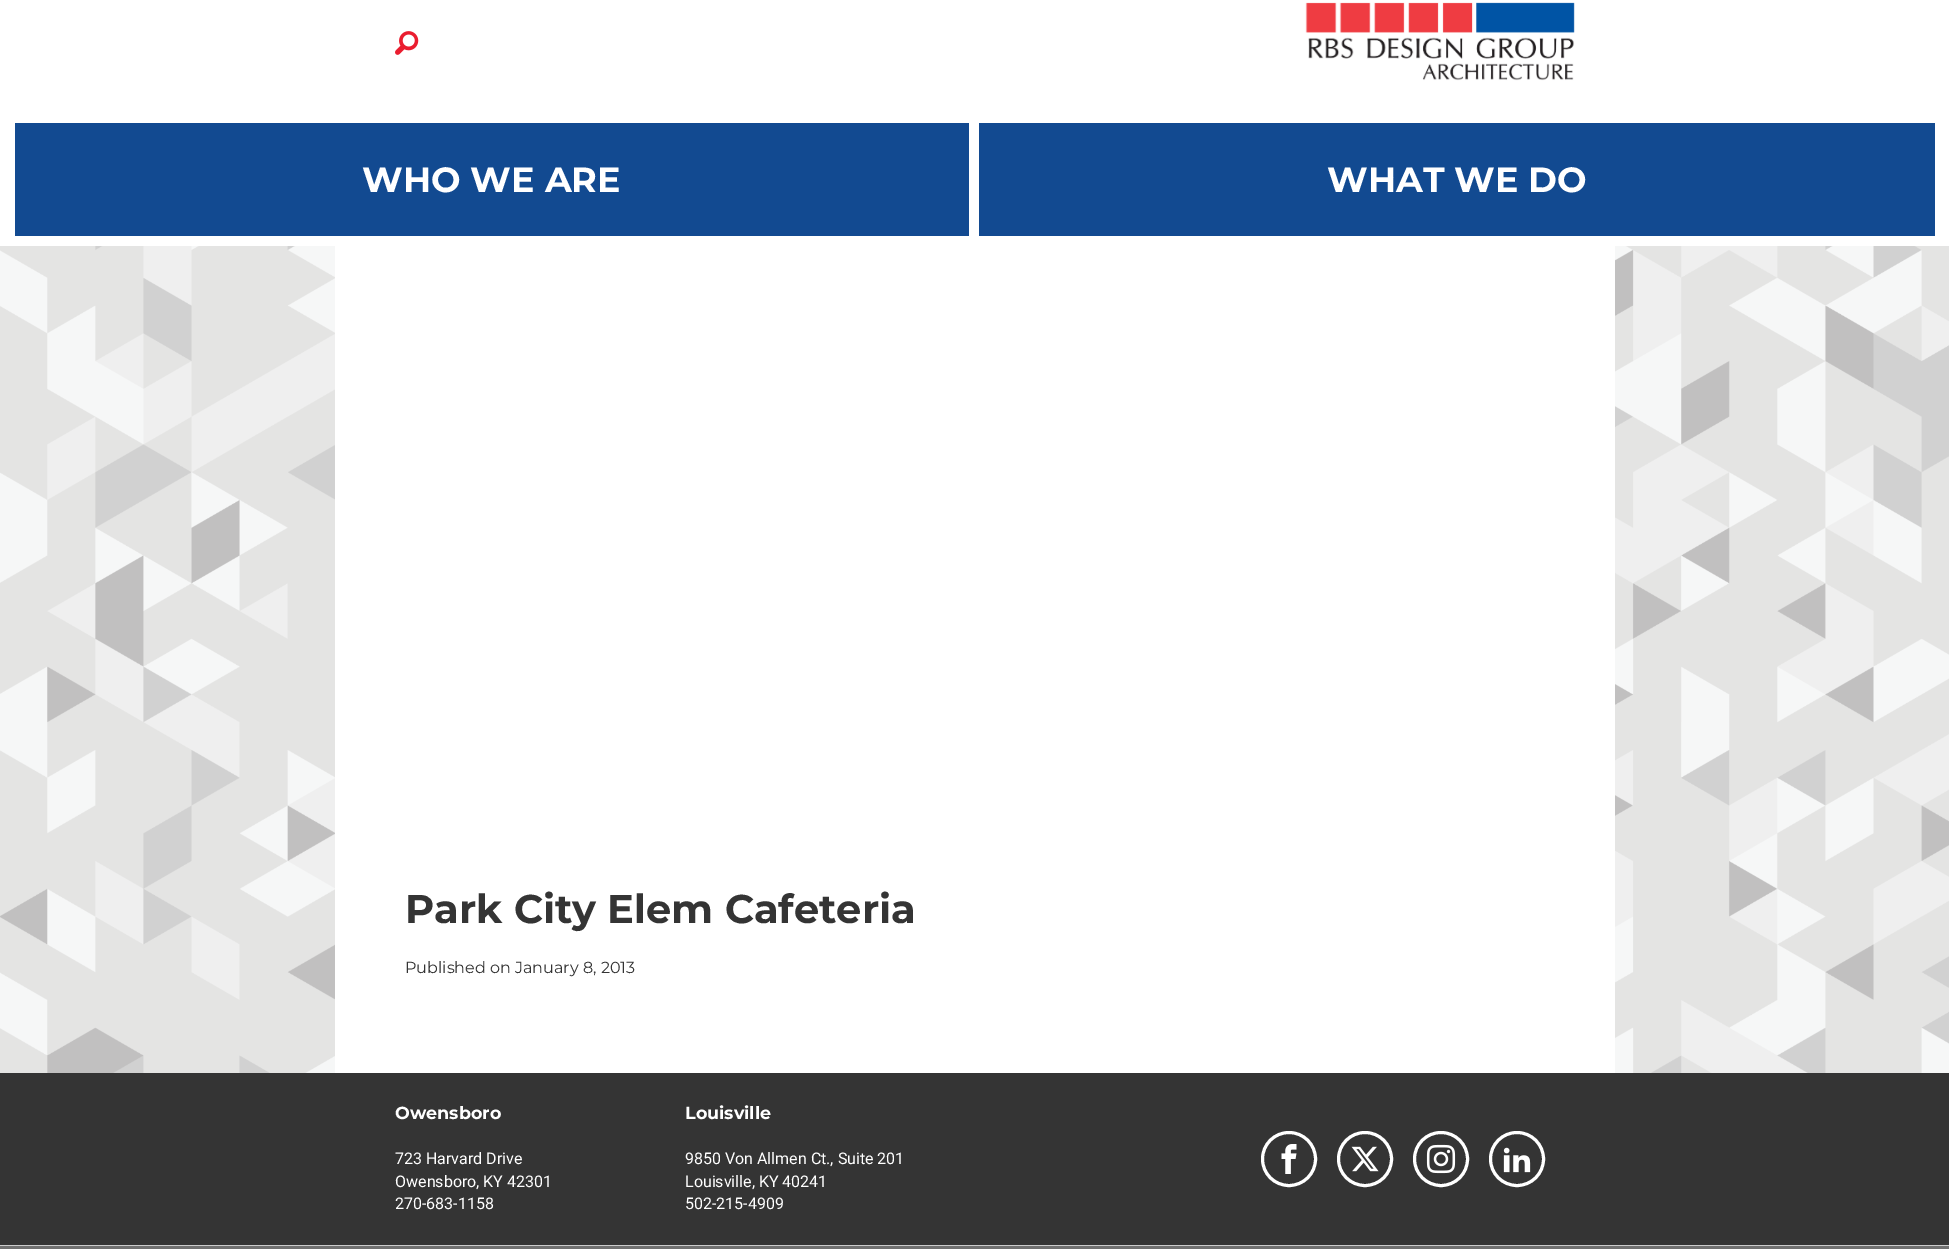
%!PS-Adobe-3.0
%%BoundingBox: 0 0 1949 1249
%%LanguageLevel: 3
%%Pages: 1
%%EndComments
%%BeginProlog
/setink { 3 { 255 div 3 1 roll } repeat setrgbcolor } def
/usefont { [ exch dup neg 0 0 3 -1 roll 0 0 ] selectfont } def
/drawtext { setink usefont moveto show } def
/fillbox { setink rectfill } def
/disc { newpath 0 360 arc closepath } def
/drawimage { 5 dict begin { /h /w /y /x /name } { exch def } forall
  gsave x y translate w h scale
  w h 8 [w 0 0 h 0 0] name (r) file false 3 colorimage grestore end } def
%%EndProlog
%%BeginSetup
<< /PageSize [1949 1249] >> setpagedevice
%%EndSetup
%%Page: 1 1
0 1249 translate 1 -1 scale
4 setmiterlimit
0 0 1949 1249 112 112 112 fillbox
0 0 1949 246 255 255 255 fillbox
(assets/img1.rgb) 395 31 24 24 drawimage
(assets/img2.rgb) 1305 2 270 79 drawimage
15 123 954 113 18 74 145 fillbox
(WHO WE ARE) 362 192 /Montserrat-Bold 35 255 255 255 drawtext
979 123 956 113 18 74 145 fillbox
(WHAT WE DO) 1327 192 /Montserrat-Bold 35 255 255 255 drawtext
(assets/img3.rgb) 0 246 1949 827 drawimage
335 246 1280 827 255 255 255 fillbox
(Park City Elem Cafeteria) 405 923 /Montserrat-Bold 40 52 52 52 drawtext
(Published on January 8, 2013) 405 973 /Montserrat-Regular 16 52 52 52 drawtext
0 1073 1949 172 52 52 52 fillbox
(Owensboro) 395 1119 /Montserrat-Bold 17.5 255 255 255 drawtext
(723 Harvard Drive) 395 1164 /Roboto-Regular 16 255 255 255 drawtext
(Owensboro, KY 42301) 395 1187 /Roboto-Regular 16 255 255 255 drawtext
(270-683-1158) 395 1209 /Roboto-Regular 16 255 255 255 drawtext
(Louisville) 685 1119 /Montserrat-Bold 17.5 255 255 255 drawtext
(9850 Von Allmen Ct., Suite 201) 685 1164 /Roboto-Regular 16 255 255 255 drawtext
(Louisville, KY 40241) 685 1187 /Roboto-Regular 16 255 255 255 drawtext
(502-215-4909) 685 1209 /Roboto-Regular 16 255 255 255 drawtext
3 setlinewidth
1289 1159 26.5 disc stroke
(assets/img4.rgb) 1281 1144 16 30 drawimage
1365 1159 26.5 disc stroke
(assets/img5.rgb) 1351 1146 28 26 drawimage
1441 1159 26.5 disc stroke
(assets/img6.rgb) 1426 1144 30 30 drawimage
1517 1159 26.5 disc stroke
(assets/img7.rgb) 1503 1147 28 26 drawimage
0 1245 1949 1 204 204 204 fillbox
showpage
%%EOF
